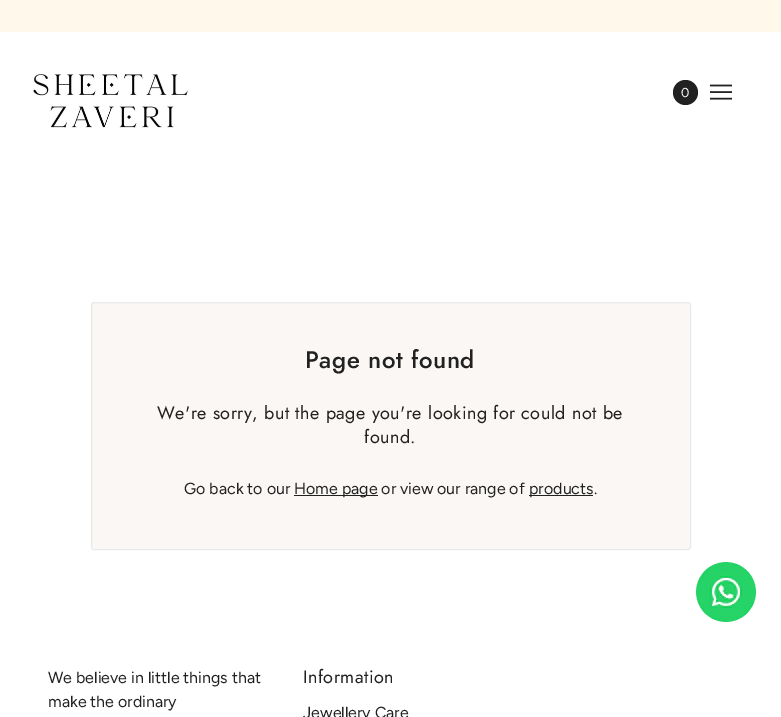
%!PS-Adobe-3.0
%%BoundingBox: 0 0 781 717
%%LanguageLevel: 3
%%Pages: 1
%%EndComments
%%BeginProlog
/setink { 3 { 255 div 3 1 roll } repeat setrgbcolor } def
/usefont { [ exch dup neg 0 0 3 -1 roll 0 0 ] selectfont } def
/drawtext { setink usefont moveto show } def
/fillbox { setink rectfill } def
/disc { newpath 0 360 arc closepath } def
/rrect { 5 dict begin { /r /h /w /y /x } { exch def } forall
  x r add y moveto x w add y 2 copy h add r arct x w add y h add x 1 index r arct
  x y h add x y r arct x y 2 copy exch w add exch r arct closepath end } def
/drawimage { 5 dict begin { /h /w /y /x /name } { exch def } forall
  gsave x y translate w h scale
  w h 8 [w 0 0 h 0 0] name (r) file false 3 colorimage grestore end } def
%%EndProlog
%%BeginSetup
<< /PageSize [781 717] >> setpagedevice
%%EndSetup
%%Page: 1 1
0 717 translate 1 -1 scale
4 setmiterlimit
0 0 781 717 255 255 255 fillbox
0 0 781 32 255 248 235 fillbox
(assets/img1.rgb) 32 74 157 54 drawimage
33 33 33 setink
685.5 92.5 12.5 disc fill
/Figtree-Regular 13 usefont
255 255 255 setink
681 97 moveto 1 0 (0) ashow
(assets/img2.rgb) 710 84 22 16 drawimage
250 247 244 setink
91.5 302.5 599 247 2.5 rrect gsave fill grestore
234 234 234 setink
stroke
/Jost-Medium 24 usefont
33 33 33 setink
305 368 moveto 0.6 0 (Page not found) ashow
/Jost-Regular 18 usefont
157 419 moveto 0.45 0 (We're sorry, but the page you're looking for could not be) ashow
364 443 moveto 0.45 0 (found.) ashow
(Go back to our) 184 494 /Figtree-Regular 16 33 33 33 drawtext
294 495 84 1 33 33 33 fillbox
(Home page or view our range of) 294 494 /Figtree-Regular 16 33 33 33 drawtext
529 495 64 1 33 33 33 fillbox
(products.) 529 494 /Figtree-Regular 16 33 33 33 drawtext
(We believe in little things that) 48 683 /Figtree-Regular 16 33 33 33 drawtext
(make the ordinary) 48 707 /Figtree-Regular 16 33 33 33 drawtext
/Jost-Regular 18 usefont
303 683 moveto 0.45 0 (Information) ashow
(Jewellery Care) 303 718 /Figtree-Regular 16 33 33 33 drawtext
(assets/img3.rgb) 696 562 60 60 drawimage
showpage
%%EOF
